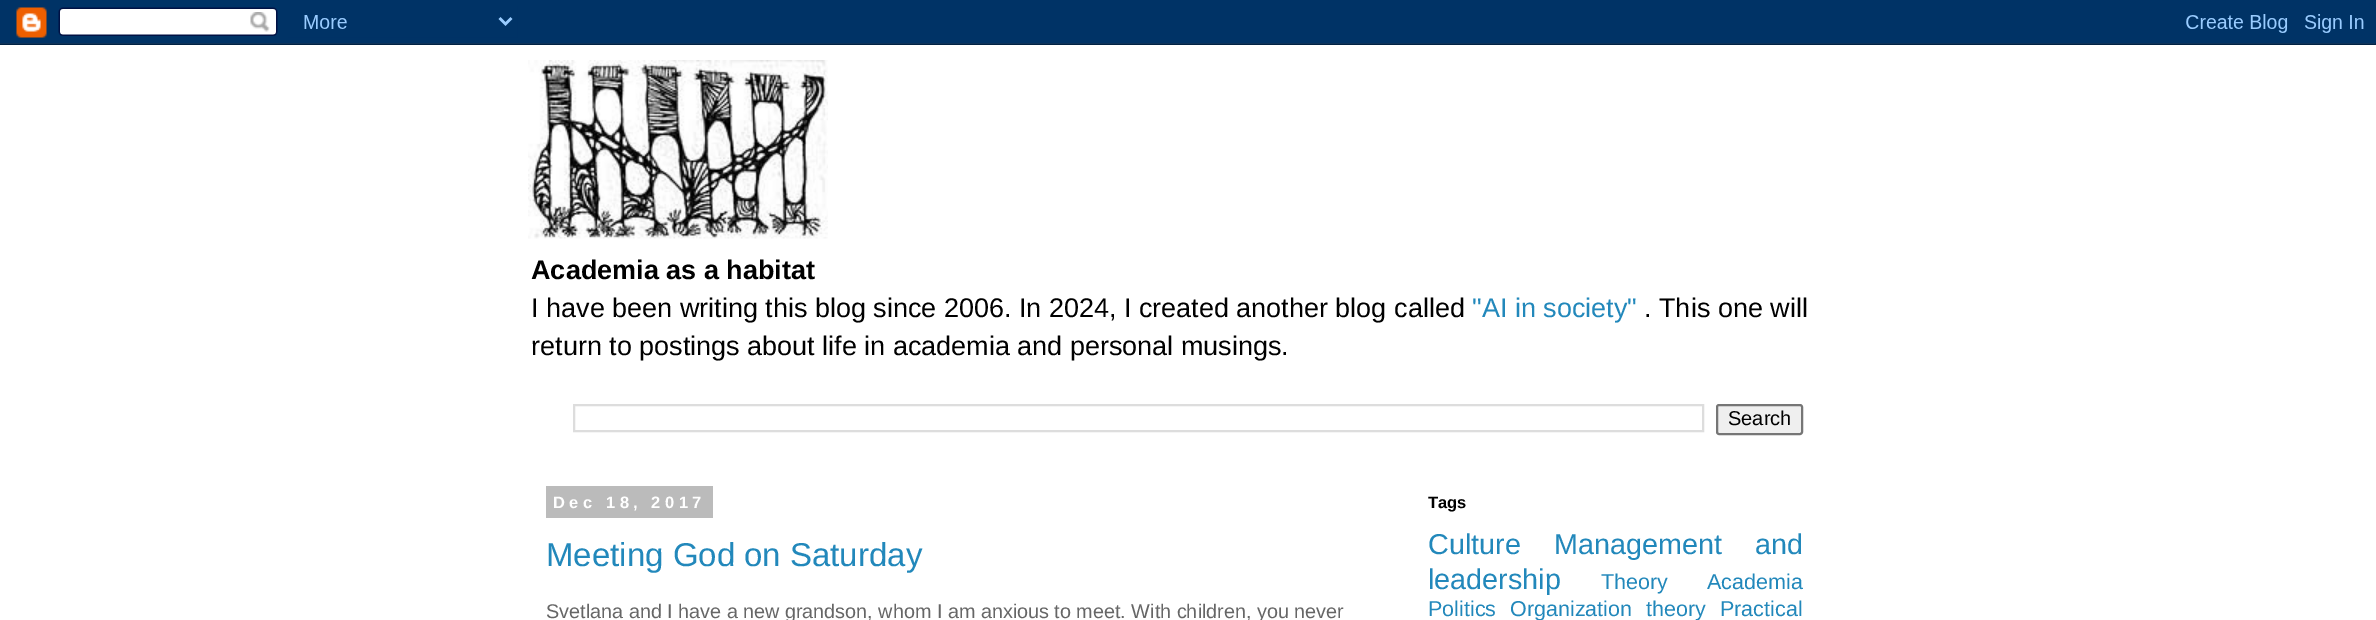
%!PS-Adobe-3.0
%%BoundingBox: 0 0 2376 620
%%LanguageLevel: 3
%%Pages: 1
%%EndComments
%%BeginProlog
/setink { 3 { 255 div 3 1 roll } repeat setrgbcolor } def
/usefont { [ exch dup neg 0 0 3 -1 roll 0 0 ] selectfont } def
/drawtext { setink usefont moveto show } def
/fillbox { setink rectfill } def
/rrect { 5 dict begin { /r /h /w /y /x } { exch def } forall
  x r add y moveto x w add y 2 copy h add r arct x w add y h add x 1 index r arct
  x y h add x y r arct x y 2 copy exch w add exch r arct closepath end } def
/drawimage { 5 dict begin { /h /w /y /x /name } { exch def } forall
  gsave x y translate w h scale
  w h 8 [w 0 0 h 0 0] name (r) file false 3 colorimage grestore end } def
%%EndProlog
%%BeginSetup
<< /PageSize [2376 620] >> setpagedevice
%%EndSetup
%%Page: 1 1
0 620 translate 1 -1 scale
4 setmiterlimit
0 0 2376 620 255 255 255 fillbox
(assets/img1.rgb) 0 0 2376 45 drawimage
(assets/img2.rgb) 528 60 300 179 drawimage
(Academia as a habitat) 531 279 /LiberationSans-Bold 27 0 0 0 drawtext
(I have been writing this blog since 2006. In 2024, I created another blog called) 531 317 /LiberationSans-Regular 27 0 0 0 drawtext
("AI in society") 1472 317 /LiberationSans-Regular 27 34 136 187 drawtext
(. This one will) 1644 317 /LiberationSans-Regular 27 0 0 0 drawtext
(return to postings about life in academia and personal musings.) 531 355 /LiberationSans-Regular 27 0 0 0 drawtext
221 221 221 setink
2 setlinewidth
574 405 1129 26 rectstroke
239 239 239 setink
1717 405 85 29 2 rrect gsave fill grestore
118 118 118 setink
stroke
(Search) 1728 425 /LiberationSans-Regular 20 0 0 0 drawtext
546 486 167 32 187 187 187 fillbox
/LiberationSans-Bold 16.5 usefont
255 255 255 setink
553 508 moveto 4.5 0 (Dec 18, 2017) ashow
(Meeting God on Saturday) 546 566 /LiberationSans-Regular 33 34 136 187 drawtext
(Svetlana and I have a new grandson, whom I am anxious to meet. With children, you never) 546 618 /LiberationSans-Regular 19.8 102 102 102 drawtext
(Tags) 1428 508 /LiberationSans-Bold 16.5 0 0 0 drawtext
(Culture) 1428 554 /LiberationSans-Regular 28.75 34 136 187 drawtext
1554 554 moveto 25 0 32 (Management and) widthshow
(leadership) 1428 589 /LiberationSans-Regular 28.75 34 136 187 drawtext
(Theory) 1601 589 /LiberationSans-Regular 21.5 34 136 187 drawtext
(Academia) 1707 589 /LiberationSans-Regular 21.5 34 136 187 drawtext
(Politics) 1428 616 /LiberationSans-Regular 21.5 34 136 187 drawtext
1510 616 moveto 8 0 32 (Organization theory) widthshow
(Practical) 1720 616 /LiberationSans-Regular 21.5 34 136 187 drawtext
showpage
%%EOF
